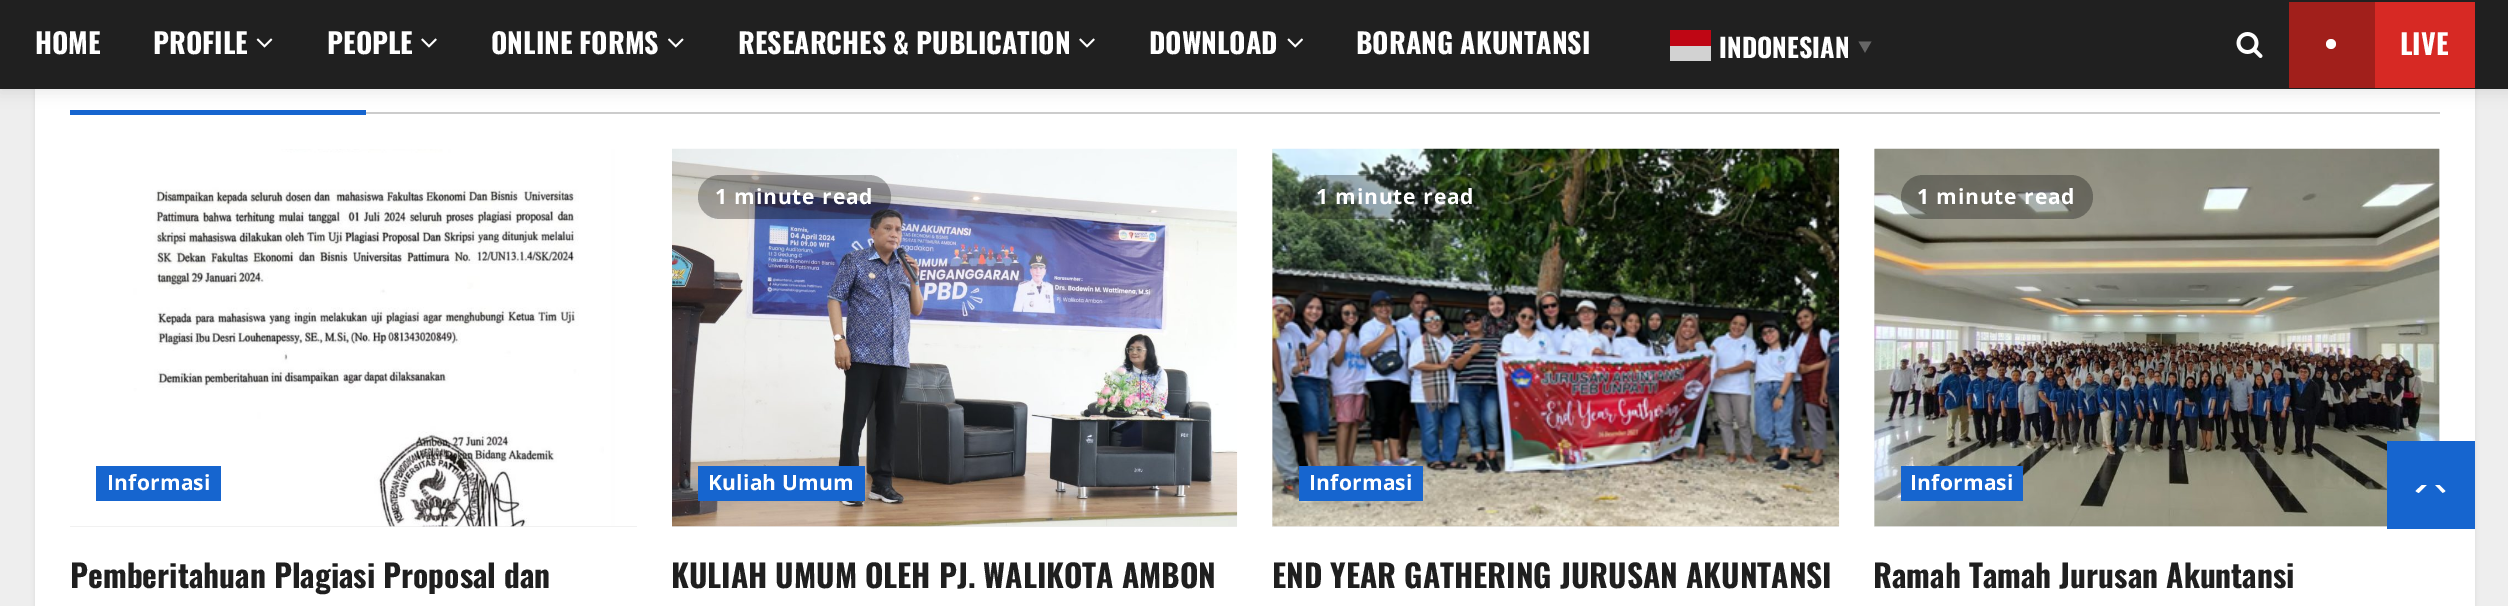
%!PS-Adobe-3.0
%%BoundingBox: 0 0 2508 606
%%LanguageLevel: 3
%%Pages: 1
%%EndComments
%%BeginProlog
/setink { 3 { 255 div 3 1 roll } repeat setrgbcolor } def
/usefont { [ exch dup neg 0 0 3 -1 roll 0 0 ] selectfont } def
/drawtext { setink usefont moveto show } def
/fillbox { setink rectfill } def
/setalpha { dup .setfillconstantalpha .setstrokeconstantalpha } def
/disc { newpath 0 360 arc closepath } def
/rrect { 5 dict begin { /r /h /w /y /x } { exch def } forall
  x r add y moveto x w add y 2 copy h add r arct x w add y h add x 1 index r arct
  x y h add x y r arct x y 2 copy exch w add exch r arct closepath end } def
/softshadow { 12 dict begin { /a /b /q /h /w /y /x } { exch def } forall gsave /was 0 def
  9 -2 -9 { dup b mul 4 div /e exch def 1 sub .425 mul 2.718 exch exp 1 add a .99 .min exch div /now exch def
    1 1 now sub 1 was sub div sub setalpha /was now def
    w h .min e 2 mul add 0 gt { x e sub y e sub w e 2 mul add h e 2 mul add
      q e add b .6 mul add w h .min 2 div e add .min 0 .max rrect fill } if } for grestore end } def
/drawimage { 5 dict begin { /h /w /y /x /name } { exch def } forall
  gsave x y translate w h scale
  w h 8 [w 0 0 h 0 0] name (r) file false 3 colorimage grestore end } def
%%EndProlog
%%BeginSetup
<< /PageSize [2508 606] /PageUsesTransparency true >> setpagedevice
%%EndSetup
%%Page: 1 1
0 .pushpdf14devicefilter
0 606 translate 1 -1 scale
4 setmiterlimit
0 0 2508 606 238 238 238 fillbox
0 0 0 setink
35 25 2440 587 0 2 0.08 softshadow
35 89 2440 517 255 255 255 fillbox
366 112 2074 2 204 204 204 fillbox
70 110 296 5 22 101 207 fillbox
0 0 0 setink
0 4 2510 89 0 7 0.08 softshadow
0 0 2508 89 32 32 32 fillbox
(HOME) 35 54 /Oswald-Bold 28 255 255 255 drawtext
(PROFILE) 153 54 /Oswald-Bold 28 255 255 255 drawtext
(assets/img1.rgb) 256 38 17 10 drawimage
(PEOPLE) 327 54 /Oswald-Bold 28 255 255 255 drawtext
(assets/img2.rgb) 421 38 16 10 drawimage
(ONLINE FORMS) 491 54 /Oswald-Bold 28 255 255 255 drawtext
(assets/img3.rgb) 668 38 16 10 drawimage
(RESEARCHES & PUBLICATION) 738 54 /Oswald-Bold 28 255 255 255 drawtext
(assets/img2.rgb) 1079 38 16 10 drawimage
(DOWNLOAD) 1149 54 /Oswald-Bold 28 255 255 255 drawtext
(assets/img4.rgb) 1287 38 16 10 drawimage
(BORANG AKUNTANSI) 1356 54 /Oswald-Bold 28 255 255 255 drawtext
1670 30 41 16 191 6 20 fillbox
(INDONESIAN) 1719 58 /Oswald-Bold 26.25 255 255 255 drawtext
(▼) 1858 52 /NotoSansCJKSC-Bold 14 102 102 102 drawtext
1670 46 41 15 210 210 210 fillbox
(assets/img5.rgb) 2236 32 27 26 drawimage
2375 2 100 86 215 41 36 fillbox
2289 2 86 86 161 31 27 fillbox
255 255 255 setink
2331 44 5 disc fill
(LIVE) 2400 55 /Oswald-Bold 28 255 255 255 drawtext
70 526 567 1 236 236 236 fillbox
(assets/img6.rgb) 70 149 567 378 drawimage
96 466 125 35 22 101 207 fillbox
/OpenSans-Bold 21 usefont
255 255 255 setink
107 490 moveto 0.25 0 (Informasi) ashow
(Pemberitahuan Plagiasi Proposal dan) 70 588 /Oswald-Bold 31.5 31 31 31 drawtext
672 526 565 1 236 236 236 fillbox
(assets/img7.rgb) 672 148 566 379 drawimage
0.3 setalpha
0 0 0 setink
698 175 193 44 22 rrect fill
/OpenSans-Bold 21 usefont
1 setalpha
255 255 255 setink
715 204 moveto 0.9 0 (1 minute read) ashow
698 466 167 35 22 101 207 fillbox
255 255 255 setink
708 490 moveto 0.25 0 (Kuliah Umum) ashow
(KULIAH UMUM OLEH PJ. WALIKOTA AMBON) 671 588 /Oswald-Bold 31.5 31 31 31 drawtext
1272 149 567 378 236 236 236 fillbox
(assets/img8.rgb) 1272 148 568 379 drawimage
0.3 setalpha
0 0 0 setink
1299 175 194 44 22 rrect fill
/OpenSans-Bold 21 usefont
1 setalpha
255 255 255 setink
1316 204 moveto 0.9 0 (1 minute read) ashow
1299 466 124 35 22 101 207 fillbox
255 255 255 setink
1309 490 moveto 0.25 0 (Informasi) ashow
(END YEAR GATHERING JURUSAN AKUNTANSI) 1272 588 /Oswald-Bold 31.5 31 31 31 drawtext
1874 149 566 378 236 236 236 fillbox
(assets/img9.rgb) 1874 148 566 379 drawimage
0.3 setalpha
0 0 0 setink
1901 175 192 44 22 rrect fill
/OpenSans-Bold 21 usefont
1 setalpha
255 255 255 setink
1917 204 moveto 0.9 0 (1 minute read) ashow
1901 466 122 35 22 101 207 fillbox
255 255 255 setink
1910 490 moveto 0.25 0 (Informasi) ashow
(Ramah Tamah Jurusan Akuntansi) 1873 588 /Oswald-Bold 31.5 31 31 31 drawtext
2387 441 88 88 22 101 207 fillbox
255 255 255 setink
2422 493.5 moveto 2439.5 493.5 lineto 2442 493.5 2444 492.5 2445.5 491 curveto 2439.5 485 lineto 2422 485 lineto 2415.5 491 lineto 2417.5 492.5 2419.5 493.5 2422 493.5 curveto closepath fill
22 101 207 setink
2448 499 moveto 2413 499 lineto 2431 481 lineto closepath fill
.poppdf14devicefilter showpage
%%EOF
